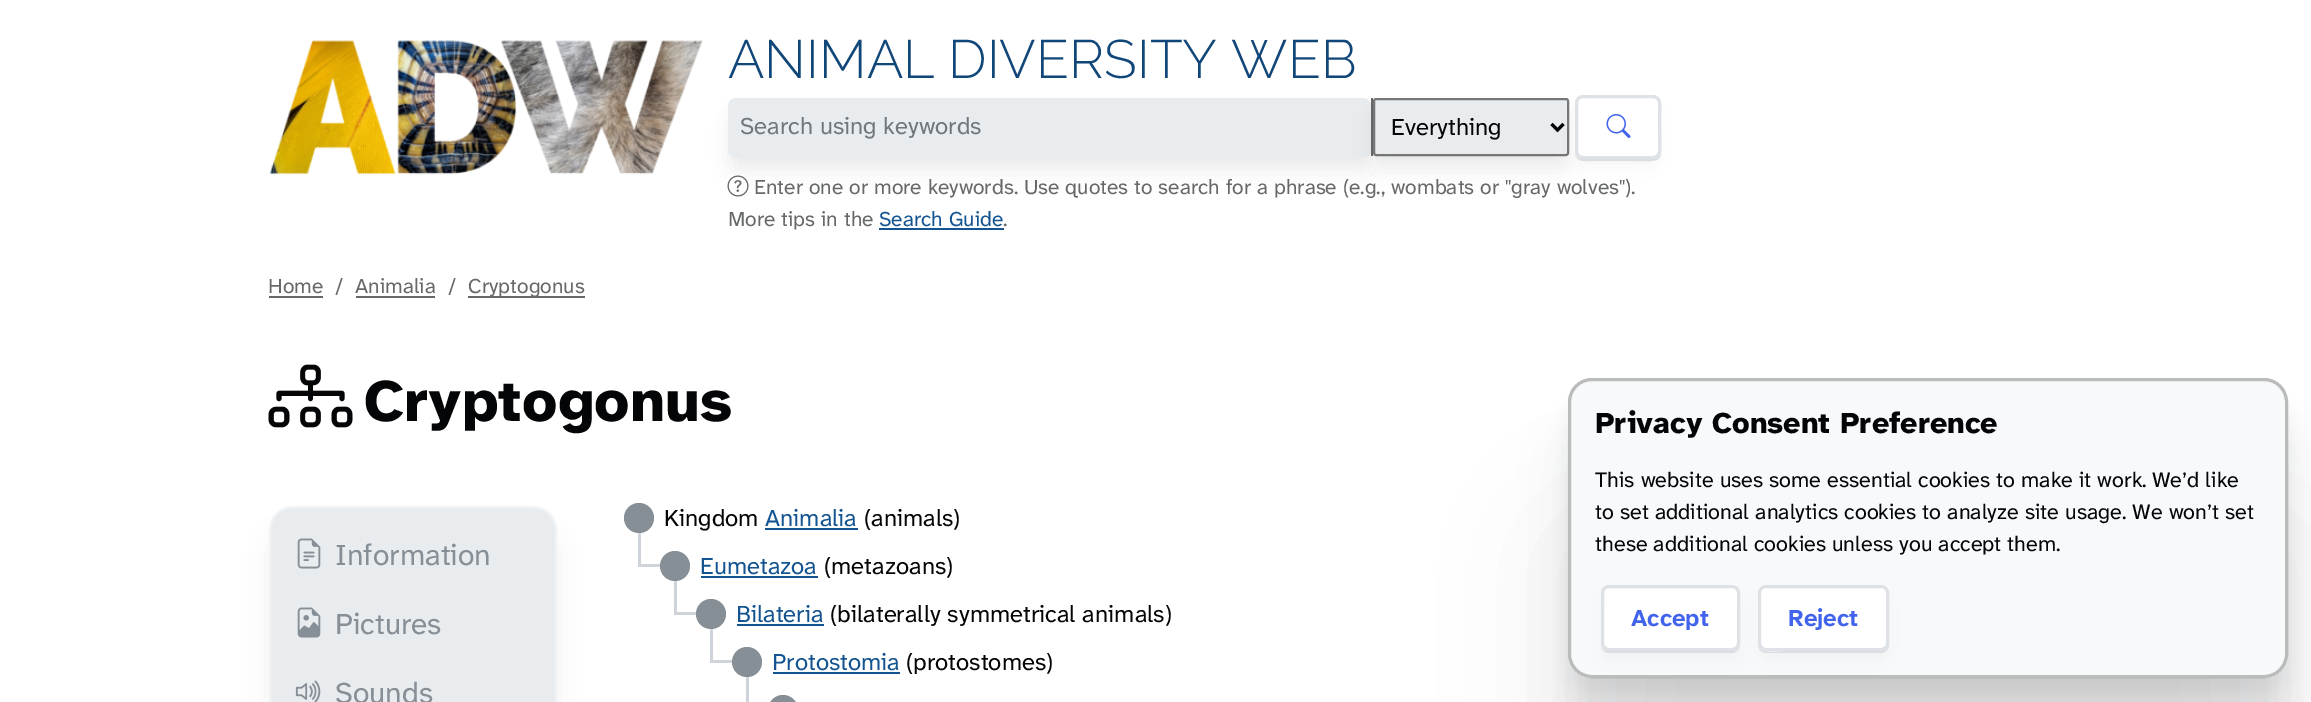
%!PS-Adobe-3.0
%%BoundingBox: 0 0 2311 702
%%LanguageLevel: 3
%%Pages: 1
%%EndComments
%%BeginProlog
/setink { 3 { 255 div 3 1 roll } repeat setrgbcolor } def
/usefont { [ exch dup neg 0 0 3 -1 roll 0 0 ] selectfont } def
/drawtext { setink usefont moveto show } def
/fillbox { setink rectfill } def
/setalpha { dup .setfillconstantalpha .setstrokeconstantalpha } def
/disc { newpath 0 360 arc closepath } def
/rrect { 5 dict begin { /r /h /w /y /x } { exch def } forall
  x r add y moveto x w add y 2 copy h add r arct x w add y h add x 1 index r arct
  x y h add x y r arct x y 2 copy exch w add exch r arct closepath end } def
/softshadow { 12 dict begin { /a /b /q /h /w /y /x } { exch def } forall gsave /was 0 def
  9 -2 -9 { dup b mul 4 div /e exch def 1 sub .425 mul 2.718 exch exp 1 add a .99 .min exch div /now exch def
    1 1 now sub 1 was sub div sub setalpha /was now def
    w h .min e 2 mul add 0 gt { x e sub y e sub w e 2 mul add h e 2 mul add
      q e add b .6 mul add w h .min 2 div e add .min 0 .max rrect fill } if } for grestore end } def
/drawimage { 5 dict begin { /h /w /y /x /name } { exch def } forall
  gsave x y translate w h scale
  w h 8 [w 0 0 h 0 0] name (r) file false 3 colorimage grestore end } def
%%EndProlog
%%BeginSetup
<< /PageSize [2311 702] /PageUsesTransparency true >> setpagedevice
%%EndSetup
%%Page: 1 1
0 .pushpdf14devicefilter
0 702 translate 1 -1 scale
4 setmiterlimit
0 0 2311 702 255 255 255 fillbox
(assets/img1.rgb) 269 40 434 135 drawimage
(ANIMAL DIVERSITY WEB) 728 78 /Raleway-Light 54 17 70 120 drawtext
37 38 39 setink
735 123 629 45 0 11 0.08 softshadow
735 111 629 45 0 9 0.06 softshadow
233 236 239 setink
728 98 643 60 8 rrect fill
(Search using keywords) 740 134 /AtkinsonHyperlegibleNext-Regular 24 113 119 125 drawtext
37 38 39 setink
1379 123 183 44 0 11 0.08 softshadow
1379 111 183 44 0 9 0.06 softshadow
1371 98 2 58 102 102 102 fillbox
233 236 239 setink
1374 99 194 56 2 rrect gsave fill grestore
118 118 118 setink
2 setlinewidth
stroke
3 5 7 setink
3 setlinewidth
1551.5 124 moveto 1557.5 130 lineto 1563.5 124 lineto stroke
(Everything) 1391 135 /AtkinsonHyperlegibleNext-Regular 24 3 5 7 drawtext
222 226 230 setink
1575 152 moveto 1575 163 1586 161 1595 161 curveto 1630 161 lineto 1666 161 1661 165 1661 128 curveto 1661 112 lineto 1661 110 1662 104 1660 101 curveto 1660 152 lineto 1660 156 1657 159 1653 159 curveto 1582 159 lineto 1578 159 1575 156 1575 152 curveto closepath fill
37 38 39 setink
1583 113 70 49 0 10.5 0.06 softshadow
255 255 255 setink
1576.5 96.5 83 61 6.5 rrect gsave fill grestore
222 226 230 setink
stroke
(assets/img2.rgb) 1606 114 25 24 drawimage
(assets/img3.rgb) 727 175 22 22 drawimage
(Enter one or more keywords. Use quotes to search for a phrase \(e.g., wombats or "gray wolves"\).) 754 194 /AtkinsonHyperlegibleNext-Regular 21 102 105 104 drawtext
(More tips in the) 728 226 /AtkinsonHyperlegibleNext-Regular 21 102 105 104 drawtext
(Search Guide) 879 226 /AtkinsonHyperlegibleNext-Regular 21 20 85 145 drawtext
879 228 125 2 20 85 145 fillbox
(.) 1003 226 /AtkinsonHyperlegibleNext-Regular 21 102 105 104 drawtext
(Home) 268 293 /AtkinsonHyperlegibleNext-Regular 21 102 105 104 drawtext
269 296 54 2 102 105 104 fillbox
(/) 335 293 /AtkinsonHyperlegibleNext-Regular 21 102 105 104 drawtext
(Animalia) 355 293 /AtkinsonHyperlegibleNext-Regular 21 102 105 104 drawtext
356 296 79 2 102 105 104 fillbox
(/) 448 293 /AtkinsonHyperlegibleNext-Regular 21 102 105 104 drawtext
468 296 117 2 102 105 104 fillbox
(Cryptogonus) 468 293 /AtkinsonHyperlegibleNext-Regular 21 102 105 104 drawtext
(assets/img4.rgb) 268 364 85 64 drawimage
(Cryptogonus) 364 421 /AtkinsonHyperlegibleNext-ExtraBold 60 3 5 7 drawtext
37 38 39 setink
272 533 282 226 21 12 0.07 softshadow
233 236 239 setink
270 507 286 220 23 rrect gsave fill grestore
241 243 245 setink
2 setlinewidth
stroke
(assets/img5.rgb) 297 538 24 31 drawimage
(Information) 335 565 /AtkinsonHyperlegibleNext-Regular 30 134 142 150 drawtext
(assets/img6.rgb) 297 607 24 31 drawimage
(Pictures) 335 634 /AtkinsonHyperlegibleNext-Regular 30 134 142 150 drawtext
(assets/img7.rgb) 295 680 26 22 drawimage
(Sounds) 335 703 /AtkinsonHyperlegibleNext-Regular 30 134 142 150 drawtext
638 564 23 3 206 212 218 fillbox
638 530 3 37 206 212 218 fillbox
134 142 150 setink
639 518 15 disc fill
(Kingdom) 664 526 /AtkinsonHyperlegibleNext-Regular 24 3 5 7 drawtext
(Animalia) 765 526 /AtkinsonHyperlegibleNext-Regular 24 20 85 145 drawtext
765 528 93 2 20 85 145 fillbox
(\(animals\)) 864 526 /AtkinsonHyperlegibleNext-Regular 24 3 5 7 drawtext
674 612 23 3 206 212 218 fillbox
674 578 3 37 206 212 218 fillbox
134 142 150 setink
675 566 15 disc fill
(Eumetazoa) 700 574 /AtkinsonHyperlegibleNext-Regular 24 20 85 145 drawtext
701 576 117 2 20 85 145 fillbox
(\(metazoans\)) 824 574 /AtkinsonHyperlegibleNext-Regular 24 3 5 7 drawtext
710 660 23 3 206 212 218 fillbox
710 626 3 37 206 212 218 fillbox
134 142 150 setink
711 614 15 disc fill
(Bilateria) 736 622 /AtkinsonHyperlegibleNext-Regular 24 20 85 145 drawtext
737 624 87 2 20 85 145 fillbox
(\(bilaterally symmetrical animals\)) 830 622 /AtkinsonHyperlegibleNext-Regular 24 3 5 7 drawtext
746 674 3 28 206 212 218 fillbox
134 142 150 setink
747 662 15 disc fill
(Protostomia) 772 670 /AtkinsonHyperlegibleNext-Regular 24 20 85 145 drawtext
773 672 127 2 20 85 145 fillbox
(\(protostomes\)) 906 670 /AtkinsonHyperlegibleNext-Regular 24 3 5 7 drawtext
134 142 150 setink
768 695 30 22 15 rrect fill
37 38 39 setink
1571 531 714 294 21 60 0.08 softshadow
1571 443 714 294 21 25 0.07 softshadow
1571 414 714 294 21 13.5 0.06 softshadow
1571 399 714 294 21 7.5 0.05 softshadow
248 249 250 setink
1568 378 720 300 24 rrect fill
0.25 setalpha
0 0 0 setink
3 setlinewidth
1569.5 379.5 717 297 22.5 rrect stroke
1 setalpha
(Privacy Consent Preference) 1595 433 /AtkinsonHyperlegibleNext-ExtraBold 30 3 5 7 drawtext
(This website uses some essential cookies to make it work.) 1595 487 /AtkinsonHyperlegibleNext-Regular 21.6 3 5 7 drawtext
(We’d like) 2152 487 /AtkinsonHyperlegibleNext-Regular 21.6 3 5 7 drawtext
(to set additional analytics cookies to analyze site usage. We won’t set) 1595 519 /AtkinsonHyperlegibleNext-Regular 21.6 3 5 7 drawtext
(these additional cookies unless you accept them.) 1595 551 /AtkinsonHyperlegibleNext-Regular 21.6 3 5 7 drawtext
222 226 230 setink
1601 647 moveto 1602 650 1605 653 1609 653 curveto 1732 653 lineto 1736 653 1740 649 1740 645 curveto 1740 644 lineto 1740 648 1737 651 1732 651 curveto 1608 651 lineto 1605 651 1602 649 1601 647 curveto closepath fill
37 38 39 setink
1608 603 125 51 0 10.5 0.06 softshadow
255 255 255 setink
1602.5 586.5 136 63 6.5 rrect gsave fill grestore
222 226 230 setink
stroke
(Accept) 1631 626 /AtkinsonHyperlegibleNext-Bold 24 66 99 235 drawtext
222 226 230 setink
1758 644 moveto 1758 645 lineto 1758 649 1762 653 1766 653 curveto 1881 653 lineto 1885 653 1889 649 1889 645 curveto 1889 595 lineto 1888 592 lineto 1888 645 lineto 1886 649 lineto 1883 651 lineto 1785 651 lineto 1781 651 1758 656 1758 644 curveto closepath fill
37 38 39 setink
1766 603 115 51 0 10.5 0.06 softshadow
255 255 255 setink
1759.5 586.5 128 63 6.5 rrect gsave fill grestore
222 226 230 setink
stroke
(Reject) 1788 626 /AtkinsonHyperlegibleNext-Bold 24 66 99 235 drawtext
.poppdf14devicefilter showpage
%%EOF
